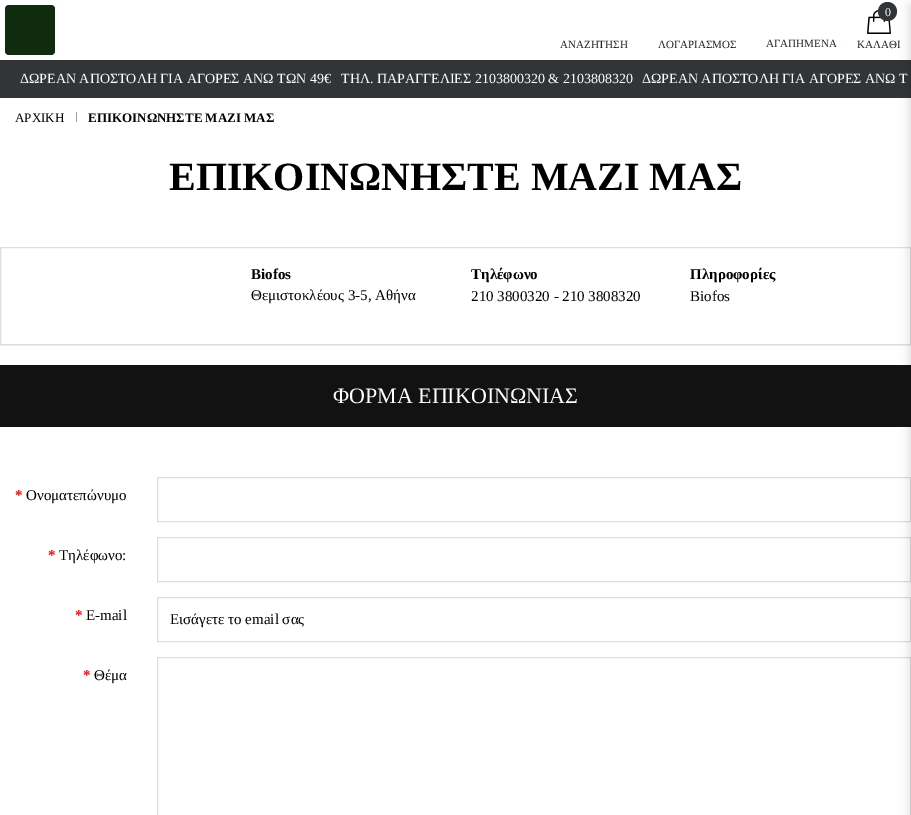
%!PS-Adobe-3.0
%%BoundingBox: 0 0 911 815
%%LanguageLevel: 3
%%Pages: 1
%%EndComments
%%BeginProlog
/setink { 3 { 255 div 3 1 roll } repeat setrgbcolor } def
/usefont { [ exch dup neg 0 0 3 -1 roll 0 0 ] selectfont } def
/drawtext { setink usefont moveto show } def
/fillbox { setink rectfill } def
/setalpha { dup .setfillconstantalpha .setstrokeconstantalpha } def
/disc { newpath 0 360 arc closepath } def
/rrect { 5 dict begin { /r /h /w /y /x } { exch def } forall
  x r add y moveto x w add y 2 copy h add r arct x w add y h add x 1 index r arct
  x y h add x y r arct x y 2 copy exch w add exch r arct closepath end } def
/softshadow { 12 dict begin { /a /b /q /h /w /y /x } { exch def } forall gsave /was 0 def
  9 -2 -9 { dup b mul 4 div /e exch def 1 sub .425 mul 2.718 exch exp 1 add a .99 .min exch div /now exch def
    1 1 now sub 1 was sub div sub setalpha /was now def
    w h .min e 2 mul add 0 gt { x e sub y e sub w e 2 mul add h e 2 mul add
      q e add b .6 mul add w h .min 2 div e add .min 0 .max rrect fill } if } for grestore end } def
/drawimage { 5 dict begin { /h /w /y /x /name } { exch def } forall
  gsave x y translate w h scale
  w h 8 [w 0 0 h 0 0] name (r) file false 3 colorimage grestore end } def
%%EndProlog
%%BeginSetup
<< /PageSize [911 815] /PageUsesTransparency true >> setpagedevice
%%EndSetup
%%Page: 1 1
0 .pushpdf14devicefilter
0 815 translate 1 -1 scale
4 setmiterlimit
0 0 911 815 255 255 255 fillbox
15 44 15 setink
5 5 50 50 4 rrect fill
(ΑΝΑΖΗΤΗΣΗ) 560 48 /LiberationSerif-Regular 11 24 36 24 drawtext
(ΛΟΓΑΡΙΑΣΜΟΣ) 658 48 /LiberationSerif-Regular 11 24 36 24 drawtext
(ΑΓΑΠΗΜΕΝΑ) 766 47 /LiberationSerif-Regular 11 24 36 24 drawtext
(assets/img1.rgb) 867 10 24 24 drawimage
50 52 54 setink
887.5 11.5 9.5 disc fill
(0) 885 16 /LiberationSerif-Regular 12 255 255 255 drawtext
(ΚΑΛΑΘΙ) 857 48 /LiberationSerif-Regular 11 24 36 24 drawtext
0 60 911 38 50 52 54 fillbox
gsave
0 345 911 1 rectclip
0 0 0 setink
0 248 911 98 0 0.5 0.05 softshadow
grestore
221 221 221 setink
0.5 247.5 910 97 rectstroke
0 365 911 62 18 18 18 fillbox
221 221 221 setink
157.5 477.5 753 44 rectstroke
157.5 537.5 753 44 rectstroke
157.5 597.5 753 44 rectstroke
157.5 657.5 753 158 rectstroke
0 0 0 setink
911 6 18 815 0 6 0.18 softshadow
(ΔΩΡΕΑΝ ΑΠΟΣΤΟΛΗ ΓΙΑ ΑΓΟΡΕΣ ΑΝΩ ΤΩΝ 49€) 20 83 /LiberationSerif-Regular 14 255 255 255 drawtext
(ΤΗΛ. ΠΑΡΑΓΓΕΛΙΕΣ 2103800320 & 2103808320) 341 83 /LiberationSerif-Regular 14 255 255 255 drawtext
(ΔΩΡΕΑΝ ΑΠΟΣΤΟΛΗ ΓΙΑ ΑΓΟΡΕΣ ΑΝΩ Τ) 642 83 /LiberationSerif-Regular 14 255 255 255 drawtext
(ΑΡΧΙΚΗ) 15 122 /LiberationSerif-Regular 13 0 0 0 drawtext
76 112 1 10 159 159 159 fillbox
(ΕΠΙΚΟΙΝΩΝΗΣΤΕ ΜΑΖΙ ΜΑΣ) 88 122 /LiberationSerif-Bold 13 0 0 0 drawtext
(ΕΠΙΚΟΙΝΩΝΗΣΤΕ ΜΑΖΙ ΜΑΣ) 169 190 /LiberationSerif-Bold 40 0 0 0 drawtext
(Biofos) 251 279 /LiberationSerif-Bold 15 0 0 0 drawtext
(Θεμιστοκλέους 3-5, Αθήνα) 251 300 /LiberationSerif-Regular 15 0 0 0 drawtext
(Τηλέφωνο) 471 279 /LiberationSerif-Bold 15 0 0 0 drawtext
(210 3800320 - 210 3808320) 471 301 /LiberationSerif-Regular 15 0 0 0 drawtext
(Πληροφορίες) 690 279 /LiberationSerif-Bold 15 0 0 0 drawtext
(Biofos) 690 301 /LiberationSerif-Regular 15 0 0 0 drawtext
(ΦΟΡΜΑ ΕΠΙΚΟΙΝΩΝΙΑΣ) 333 403 /LiberationSerif-Regular 22 255 255 255 drawtext
(*) 15 500 /LiberationSerif-Bold 15 255 0 0 drawtext
(Ονοματεπώνυμο) 26 500 /LiberationSerif-Regular 15 0 0 0 drawtext
(*) 48 560 /LiberationSerif-Bold 15 255 0 0 drawtext
(Τηλέφωνο:) 59 560 /LiberationSerif-Regular 15 0 0 0 drawtext
(*) 75 620 /LiberationSerif-Bold 15 255 0 0 drawtext
(E-mail) 86 620 /LiberationSerif-Regular 15 0 0 0 drawtext
(Εισάγετε το email σας) 170 624 /LiberationSerif-Regular 15 0 0 0 drawtext
(*) 83 680 /LiberationSerif-Bold 15 255 0 0 drawtext
(Θέμα) 94 680 /LiberationSerif-Regular 15 0 0 0 drawtext
.poppdf14devicefilter showpage
%%EOF
